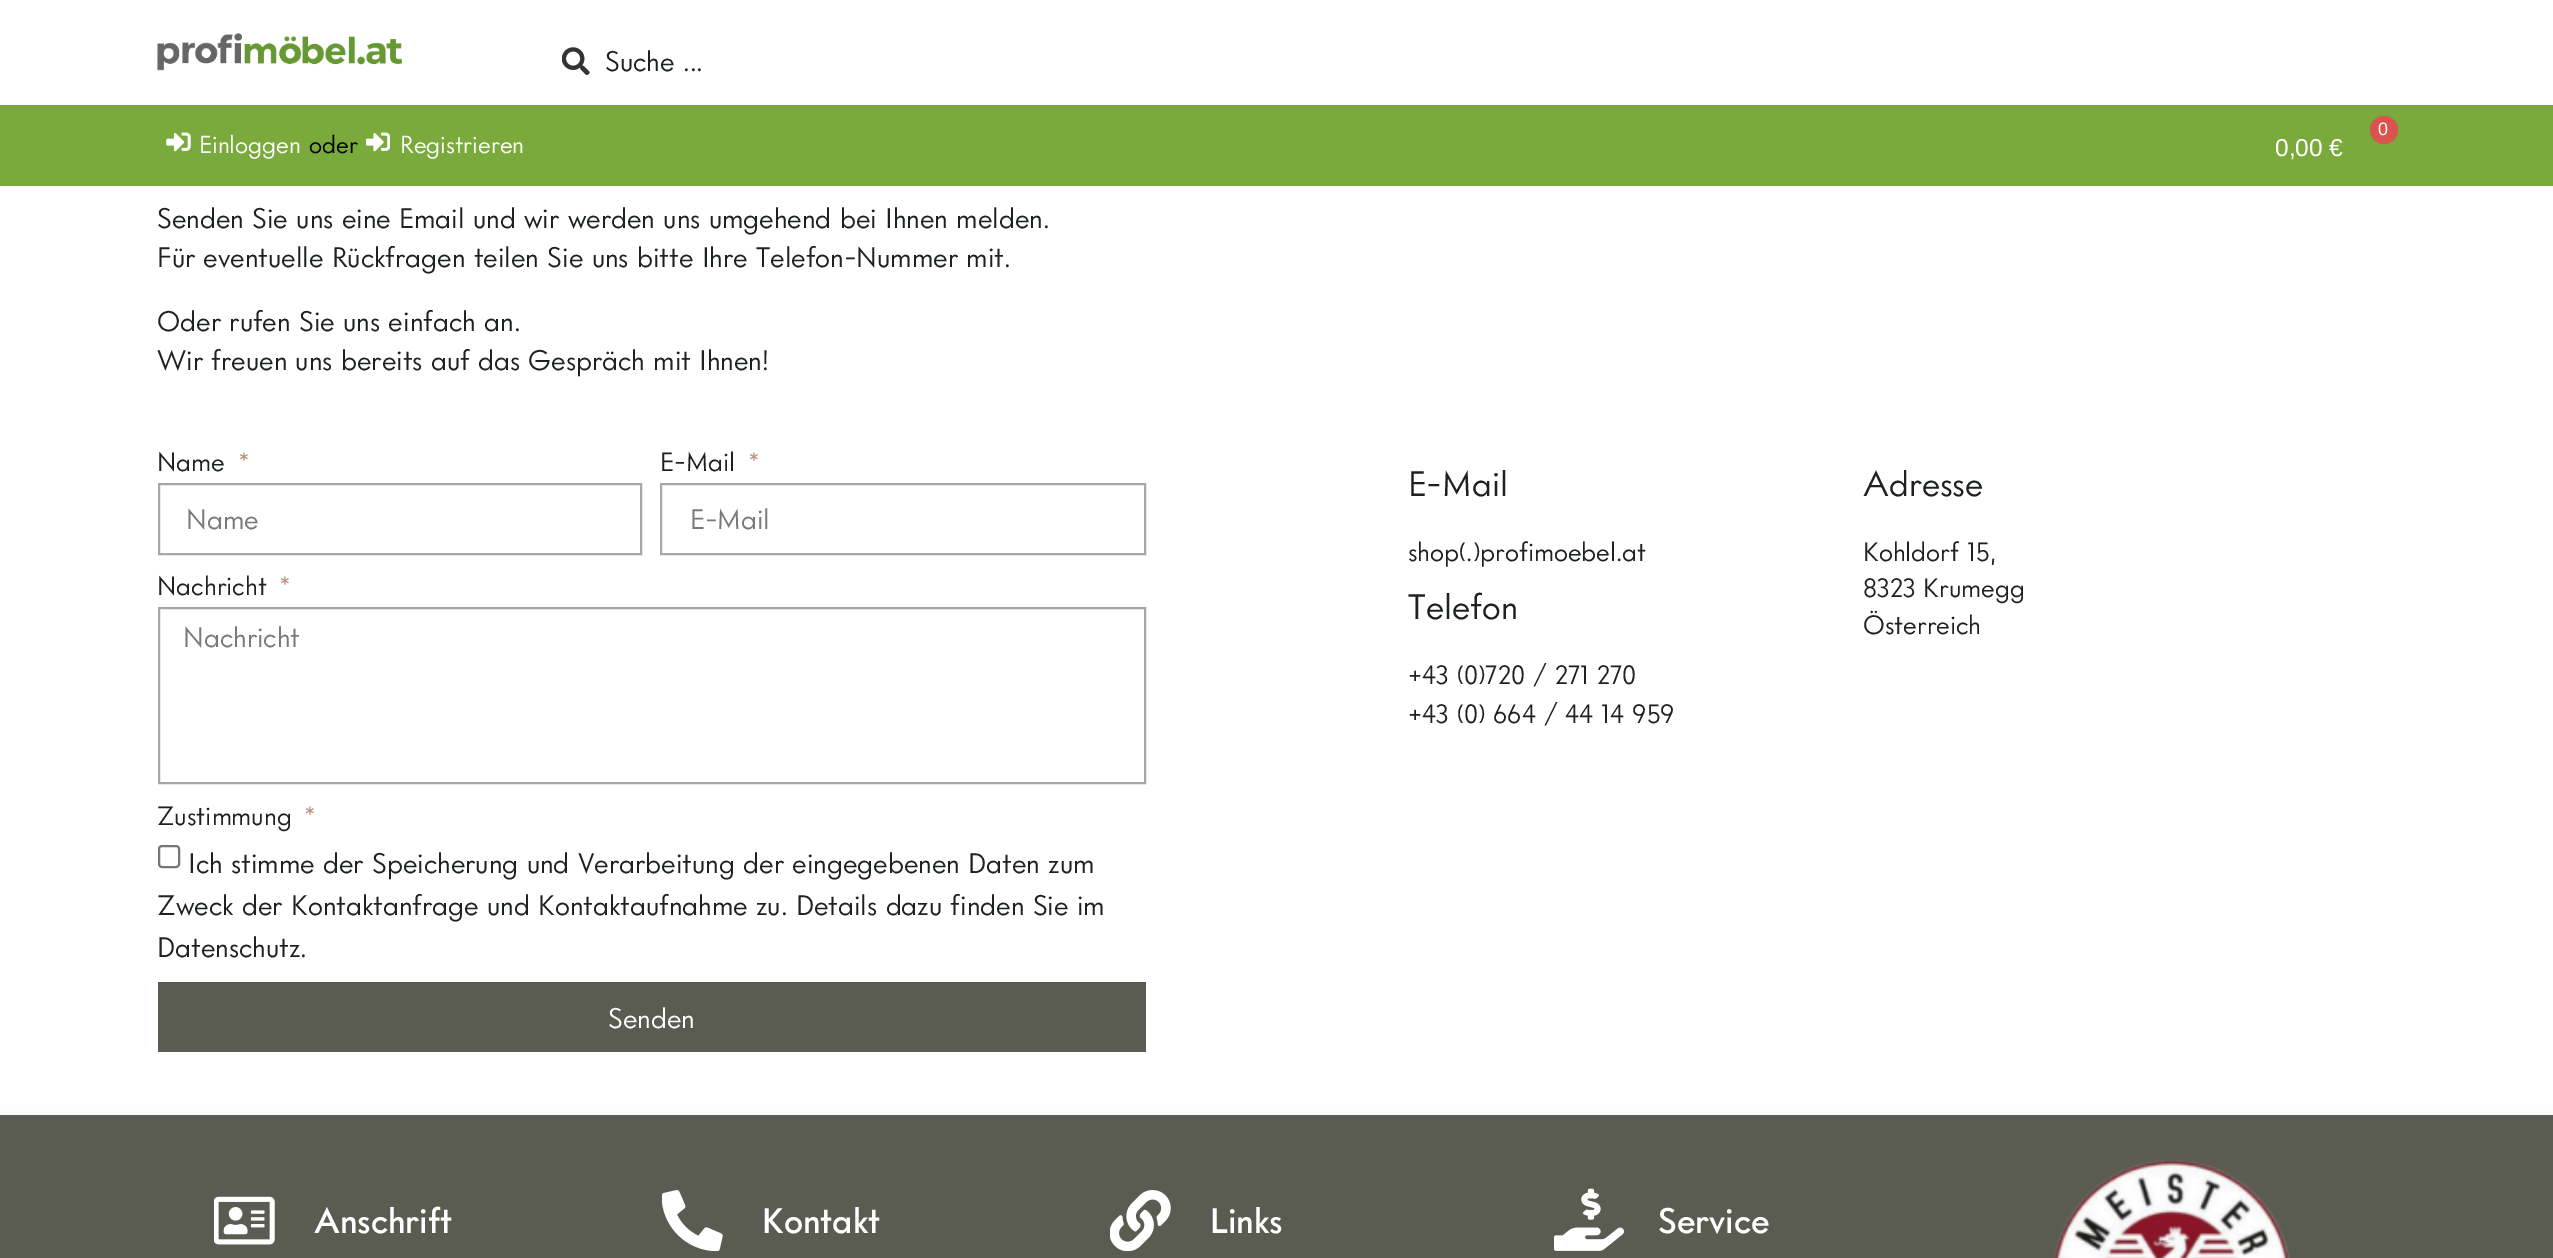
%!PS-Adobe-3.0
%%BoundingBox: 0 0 2553 1258
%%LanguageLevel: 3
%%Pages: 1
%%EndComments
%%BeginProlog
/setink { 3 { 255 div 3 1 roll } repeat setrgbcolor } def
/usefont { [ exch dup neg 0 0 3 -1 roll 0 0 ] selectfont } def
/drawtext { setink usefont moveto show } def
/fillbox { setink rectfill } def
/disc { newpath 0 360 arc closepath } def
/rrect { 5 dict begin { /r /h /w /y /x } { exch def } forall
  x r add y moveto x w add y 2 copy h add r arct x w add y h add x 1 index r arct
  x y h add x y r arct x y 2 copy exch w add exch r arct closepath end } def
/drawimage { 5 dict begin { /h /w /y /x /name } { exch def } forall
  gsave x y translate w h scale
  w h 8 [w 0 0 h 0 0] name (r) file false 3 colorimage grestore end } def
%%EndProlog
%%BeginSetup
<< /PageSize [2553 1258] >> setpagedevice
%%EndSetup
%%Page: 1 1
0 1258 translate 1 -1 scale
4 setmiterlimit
0 0 2553 1258 252 252 252 fillbox
0 0 2553 105 255 255 255 fillbox
(assets/img1.rgb) 157 33 246 38 drawimage
(assets/img2.rgb) 562 47 28 28 drawimage
(Suche ...) 605 71 /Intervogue-Regular 28 29 33 32 drawtext
0 105 2553 81 122 169 60 fillbox
(assets/img3.rgb) 166 132 25 20 drawimage
(Einloggen) 199 153 /Intervogue-Regular 24.5 255 255 255 drawtext
(oder) 309 153 /Intervogue-Regular 24.5 0 0 0 drawtext
(assets/img4.rgb) 366 132 24 20 drawimage
(Registrieren) 400 153 /Intervogue-Regular 24.5 255 255 255 drawtext
217 83 79 setink
2384 130 14 disc fill
(0) 2378 135 /LiberationSans-Regular 18 255 255 255 drawtext
(0,00 €) 2275 156 /LiberationSans-Regular 24.5 255 255 255 drawtext
0 186 2553 918 255 255 255 fillbox
(Senden Sie uns eine Email und wir werden uns umgehend bei Ihnen melden.) 157 228 /Intervogue-Regular 28 29 33 32 drawtext
(Für eventuelle Rückfragen teilen Sie uns bitte Ihre Telefon-Nummer mit.) 157 267 /Intervogue-Regular 28 29 33 32 drawtext
(Oder rufen Sie uns einfach an.) 157 331 /Intervogue-Regular 28 29 33 32 drawtext
(Wir freuen uns bereits auf das Gespräch mit Ihnen!) 157 370 /Intervogue-Regular 28 29 33 32 drawtext
(Name) 157 471 /Intervogue-Regular 26.25 29 33 32 drawtext
(*) 238 471 /Intervogue-Regular 26.25 186 144 119 drawtext
167 167 167 setink
2 setlinewidth
159 484 482 70 rectstroke
(Name) 186 529 /Intervogue-Regular 28 119 122 121 drawtext
(E-Mail) 660 471 /Intervogue-Regular 26.25 29 33 32 drawtext
(*) 748 471 /Intervogue-Regular 26.25 186 144 119 drawtext
167 167 167 setink
661 484 484 70 rectstroke
(E-Mail) 690 529 /Intervogue-Regular 28 119 122 121 drawtext
(Nachricht) 157 595 /Intervogue-Regular 26.25 29 33 32 drawtext
(*) 279 595 /Intervogue-Regular 26.25 186 144 119 drawtext
167 167 167 setink
159 608 986 175 rectstroke
(Nachricht) 183 647 /Intervogue-Regular 28 119 122 121 drawtext
(Zustimmung) 157 825 /Intervogue-Regular 26.25 29 33 32 drawtext
(*) 304 825 /Intervogue-Regular 26.25 186 144 119 drawtext
118 118 118 setink
159 846 20 21 3 rrect stroke
(Ich stimme der Speicherung und Verarbeitung der eingegebenen Daten zum) 188 873 /Intervogue-Regular 28 29 33 32 drawtext
(Zweck der Kontaktanfrage und Kontaktaufnahme zu. Details dazu finden Sie im) 157 915 /Intervogue-Regular 28 29 33 32 drawtext
(Datenschutz.) 157 957 /Intervogue-Regular 28 29 33 32 drawtext
158 982 988 70 90 92 81 fillbox
(Senden) 608 1028 /Intervogue-Regular 28 255 255 255 drawtext
(E-Mail) 1408 496 /Intervogue-Regular 35 29 33 32 drawtext
(shop\(.\)profimoebel.at) 1408 561 /Intervogue-Regular 26.25 29 33 32 drawtext
(Telefon) 1408 619 /Intervogue-Regular 35 29 33 32 drawtext
(+43 \(0\)720 / 271 270) 1408 684 /Intervogue-Regular 26.25 29 33 32 drawtext
(+43 \(0\) 664 / 44 14 959) 1408 723 /Intervogue-Regular 26.25 29 33 32 drawtext
(Adresse) 1863 496 /Intervogue-Regular 35 29 33 32 drawtext
(Kohldorf 15,) 1863 561 /Intervogue-Regular 26.25 29 33 32 drawtext
(8323 Krumegg) 1863 597 /Intervogue-Regular 26.25 29 33 32 drawtext
(Österreich) 1863 634 /Intervogue-Regular 26.25 29 33 32 drawtext
0 1115 2553 143 90 92 81 fillbox
(assets/img5.rgb) 214 1196 61 49 drawimage
(Anschrift) 314 1233 /Intervogue-Medium 35 255 255 255 drawtext
(assets/img6.rgb) 662 1190 61 61 drawimage
(Kontakt) 762 1233 /Intervogue-Medium 35 255 255 255 drawtext
(assets/img7.rgb) 1110 1190 61 61 drawimage
(Links) 1210 1233 /Intervogue-Medium 35 255 255 255 drawtext
(assets/img8.rgb) 1554 1188 70 63 drawimage
(Service) 1658 1233 /Intervogue-Medium 35 255 255 255 drawtext
(assets/img9.rgb) 2053 1159 238 99 drawimage
showpage
%%EOF
